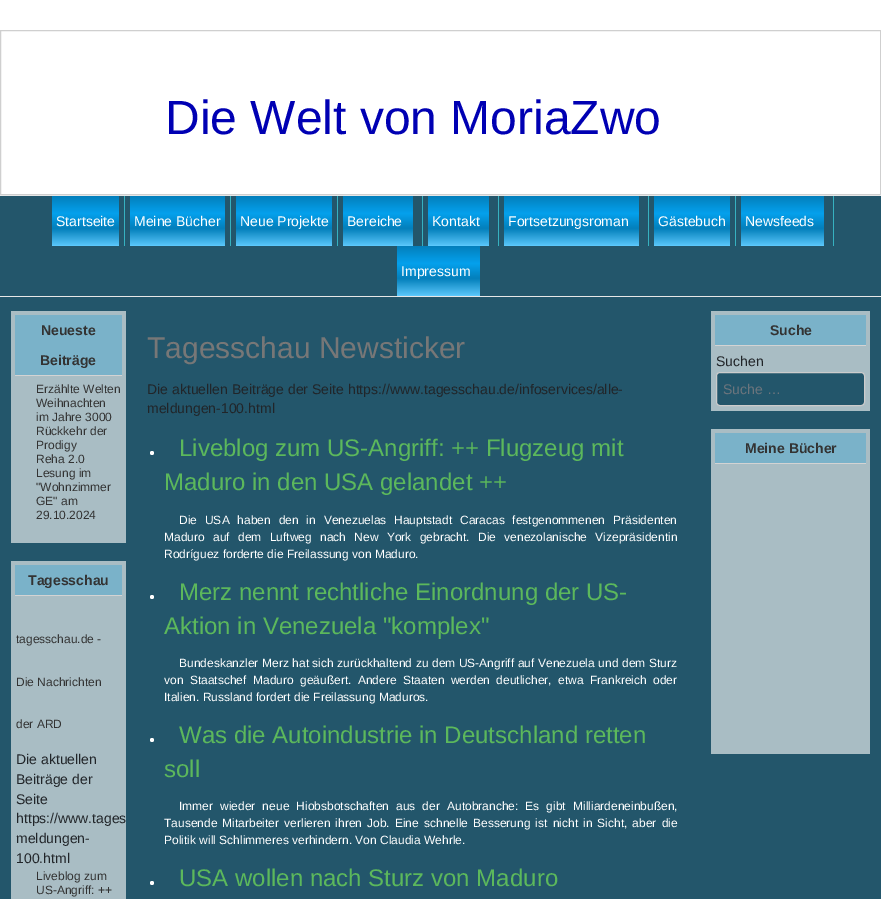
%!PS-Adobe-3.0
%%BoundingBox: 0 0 881 899
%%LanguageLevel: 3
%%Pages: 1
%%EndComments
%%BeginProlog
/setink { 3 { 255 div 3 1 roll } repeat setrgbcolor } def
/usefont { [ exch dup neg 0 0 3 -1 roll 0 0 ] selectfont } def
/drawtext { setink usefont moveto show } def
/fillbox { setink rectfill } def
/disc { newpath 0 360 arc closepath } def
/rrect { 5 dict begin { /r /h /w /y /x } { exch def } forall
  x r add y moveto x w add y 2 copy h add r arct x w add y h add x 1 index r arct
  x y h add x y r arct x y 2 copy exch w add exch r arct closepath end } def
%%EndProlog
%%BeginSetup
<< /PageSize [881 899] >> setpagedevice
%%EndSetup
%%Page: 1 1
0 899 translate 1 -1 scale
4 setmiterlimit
0 0 881 899 255 255 255 fillbox
0 196 881 703 35 86 107 fillbox
207 207 207 setink
0.5 30.5 880 164 rectstroke
(Die Welt von MoriaZwo) 165 134 /LiberationSans-Regular 48 0 0 179 drawtext
0 195 881 1 231 231 231 fillbox
0 296 881 1 231 231 231 fillbox
gsave 52 196 moveto 119 196 lineto 119 246 lineto 52 246 lineto closepath clip newpath
<< /ShadingType 2 /ColorSpace /DeviceRGB /Coords [86 196 86 246] /Extend [true true] /Function << /FunctionType 3 /Domain [0 1] /Functions [<< /FunctionType 2 /Domain [0 1] /C0 [0.012 0.498 0.733] /C1 [0.016 0.631 0.929] /N 1 >> << /FunctionType 2 /Domain [0 1] /C0 [0.016 0.631 0.929] /C1 [0.012 0.498 0.733] /N 1 >> << /FunctionType 2 /Domain [0 1] /C0 [0.012 0.498 0.733] /C1 [0.357 0.784 0.988] /N 1 >>] /Bounds [0.35 0.65] /Encode [0 1 0 1 0 1] >> >> shfill grestore
(Startseite) 56 226 /LiberationSans-Regular 14 255 255 255 drawtext
124 196 1 50 54 177 192 fillbox
gsave 130 196 moveto 225 196 lineto 225 246 lineto 130 246 lineto closepath clip newpath
<< /ShadingType 2 /ColorSpace /DeviceRGB /Coords [178 196 178 246] /Extend [true true] /Function << /FunctionType 3 /Domain [0 1] /Functions [<< /FunctionType 2 /Domain [0 1] /C0 [0.012 0.498 0.733] /C1 [0.016 0.631 0.929] /N 1 >> << /FunctionType 2 /Domain [0 1] /C0 [0.016 0.631 0.929] /C1 [0.012 0.498 0.733] /N 1 >> << /FunctionType 2 /Domain [0 1] /C0 [0.012 0.498 0.733] /C1 [0.357 0.784 0.988] /N 1 >>] /Bounds [0.35 0.65] /Encode [0 1 0 1 0 1] >> >> shfill grestore
(Meine Bücher) 134 226 /LiberationSans-Regular 14 255 255 255 drawtext
230 196 1 50 54 177 192 fillbox
gsave 236 196 moveto 332 196 lineto 332 246 lineto 236 246 lineto closepath clip newpath
<< /ShadingType 2 /ColorSpace /DeviceRGB /Coords [284 196 284 246] /Extend [true true] /Function << /FunctionType 3 /Domain [0 1] /Functions [<< /FunctionType 2 /Domain [0 1] /C0 [0.012 0.498 0.733] /C1 [0.016 0.631 0.929] /N 1 >> << /FunctionType 2 /Domain [0 1] /C0 [0.016 0.631 0.929] /C1 [0.012 0.498 0.733] /N 1 >> << /FunctionType 2 /Domain [0 1] /C0 [0.012 0.498 0.733] /C1 [0.357 0.784 0.988] /N 1 >>] /Bounds [0.35 0.65] /Encode [0 1 0 1 0 1] >> >> shfill grestore
(Neue Projekte) 240 226 /LiberationSans-Regular 14 255 255 255 drawtext
337 196 1 50 54 177 192 fillbox
gsave 343 196 moveto 413 196 lineto 413 246 lineto 343 246 lineto closepath clip newpath
<< /ShadingType 2 /ColorSpace /DeviceRGB /Coords [376 196 376 246] /Extend [true true] /Function << /FunctionType 3 /Domain [0 1] /Functions [<< /FunctionType 2 /Domain [0 1] /C0 [0.012 0.498 0.733] /C1 [0.016 0.631 0.929] /N 1 >> << /FunctionType 2 /Domain [0 1] /C0 [0.016 0.631 0.929] /C1 [0.012 0.498 0.733] /N 1 >> << /FunctionType 2 /Domain [0 1] /C0 [0.012 0.498 0.733] /C1 [0.357 0.784 0.988] /N 1 >>] /Bounds [0.35 0.65] /Encode [0 1 0 1 0 1] >> >> shfill grestore
(Bereiche) 347 226 /LiberationSans-Regular 14 255 255 255 drawtext
422 196 1 50 54 177 192 fillbox
gsave 428 196 moveto 489 196 lineto 489 246 lineto 428 246 lineto closepath clip newpath
<< /ShadingType 2 /ColorSpace /DeviceRGB /Coords [457 196 457 246] /Extend [true true] /Function << /FunctionType 3 /Domain [0 1] /Functions [<< /FunctionType 2 /Domain [0 1] /C0 [0.012 0.498 0.733] /C1 [0.016 0.631 0.929] /N 1 >> << /FunctionType 2 /Domain [0 1] /C0 [0.016 0.631 0.929] /C1 [0.012 0.498 0.733] /N 1 >> << /FunctionType 2 /Domain [0 1] /C0 [0.012 0.498 0.733] /C1 [0.357 0.784 0.988] /N 1 >>] /Bounds [0.35 0.65] /Encode [0 1 0 1 0 1] >> >> shfill grestore
(Kontakt) 432 226 /LiberationSans-Regular 14 255 255 255 drawtext
498 196 1 50 54 177 192 fillbox
gsave 504 196 moveto 639 196 lineto 639 246 lineto 504 246 lineto closepath clip newpath
<< /ShadingType 2 /ColorSpace /DeviceRGB /Coords [570 196 570 246] /Extend [true true] /Function << /FunctionType 3 /Domain [0 1] /Functions [<< /FunctionType 2 /Domain [0 1] /C0 [0.012 0.498 0.733] /C1 [0.016 0.631 0.929] /N 1 >> << /FunctionType 2 /Domain [0 1] /C0 [0.016 0.631 0.929] /C1 [0.012 0.498 0.733] /N 1 >> << /FunctionType 2 /Domain [0 1] /C0 [0.012 0.498 0.733] /C1 [0.357 0.784 0.988] /N 1 >>] /Bounds [0.35 0.65] /Encode [0 1 0 1 0 1] >> >> shfill grestore
(Fortsetzungsroman) 508 226 /LiberationSans-Regular 14 255 255 255 drawtext
648 196 1 50 54 177 192 fillbox
gsave 654 196 moveto 730 196 lineto 730 246 lineto 654 246 lineto closepath clip newpath
<< /ShadingType 2 /ColorSpace /DeviceRGB /Coords [692 196 692 246] /Extend [true true] /Function << /FunctionType 3 /Domain [0 1] /Functions [<< /FunctionType 2 /Domain [0 1] /C0 [0.012 0.498 0.733] /C1 [0.016 0.631 0.929] /N 1 >> << /FunctionType 2 /Domain [0 1] /C0 [0.016 0.631 0.929] /C1 [0.012 0.498 0.733] /N 1 >> << /FunctionType 2 /Domain [0 1] /C0 [0.012 0.498 0.733] /C1 [0.357 0.784 0.988] /N 1 >>] /Bounds [0.35 0.65] /Encode [0 1 0 1 0 1] >> >> shfill grestore
(Gästebuch) 658 226 /LiberationSans-Regular 14 255 255 255 drawtext
735 196 1 50 54 177 192 fillbox
gsave 741 196 moveto 824 196 lineto 824 246 lineto 741 246 lineto closepath clip newpath
<< /ShadingType 2 /ColorSpace /DeviceRGB /Coords [781 196 781 246] /Extend [true true] /Function << /FunctionType 3 /Domain [0 1] /Functions [<< /FunctionType 2 /Domain [0 1] /C0 [0.012 0.498 0.733] /C1 [0.016 0.631 0.929] /N 1 >> << /FunctionType 2 /Domain [0 1] /C0 [0.016 0.631 0.929] /C1 [0.012 0.498 0.733] /N 1 >> << /FunctionType 2 /Domain [0 1] /C0 [0.012 0.498 0.733] /C1 [0.357 0.784 0.988] /N 1 >>] /Bounds [0.35 0.65] /Encode [0 1 0 1 0 1] >> >> shfill grestore
(Newsfeeds) 745 226 /LiberationSans-Regular 14 255 255 255 drawtext
833 196 1 50 54 177 192 fillbox
gsave 397 246 moveto 480 246 lineto 480 296 lineto 397 296 lineto closepath clip newpath
<< /ShadingType 2 /ColorSpace /DeviceRGB /Coords [437 246 437 296] /Extend [true true] /Function << /FunctionType 3 /Domain [0 1] /Functions [<< /FunctionType 2 /Domain [0 1] /C0 [0.012 0.498 0.733] /C1 [0.016 0.631 0.929] /N 1 >> << /FunctionType 2 /Domain [0 1] /C0 [0.016 0.631 0.929] /C1 [0.012 0.498 0.733] /N 1 >> << /FunctionType 2 /Domain [0 1] /C0 [0.012 0.498 0.733] /C1 [0.357 0.784 0.988] /N 1 >>] /Bounds [0.35 0.65] /Encode [0 1 0 1 0 1] >> >> shfill grestore
(Impressum) 401 276 /LiberationSans-Regular 14 255 255 255 drawtext
11 311 115 232 169 189 196 fillbox
15 315 107 60 122 178 201 fillbox
15 375 107 1 211 211 211 fillbox
(Neueste) 41 335 /LiberationSans-Bold 14 51 51 51 drawtext
(Beiträge) 40 365 /LiberationSans-Bold 14 51 51 51 drawtext
(Erzählte Welten) 36 393 /LiberationSans-Regular 12 51 51 51 drawtext
(Weihnachten) 36 407 /LiberationSans-Regular 12 51 51 51 drawtext
(im Jahre 3000) 36 421 /LiberationSans-Regular 12 51 51 51 drawtext
(Rückkehr der) 36 435 /LiberationSans-Regular 12 51 51 51 drawtext
(Prodigy) 36 449 /LiberationSans-Regular 12 51 51 51 drawtext
(Reha 2.0) 36 463 /LiberationSans-Regular 12 51 51 51 drawtext
(Lesung im) 36 477 /LiberationSans-Regular 12 51 51 51 drawtext
("Wohnzimmer) 36 491 /LiberationSans-Regular 12 51 51 51 drawtext
(GE" am) 36 505 /LiberationSans-Regular 12 51 51 51 drawtext
(29.10.2024) 36 519 /LiberationSans-Regular 12 51 51 51 drawtext
11 561 115 338 169 189 196 fillbox
15 565 107 30 122 178 201 fillbox
15 595 107 1 211 211 211 fillbox
(Tagesschau) 28 585 /LiberationSans-Bold 14 51 51 51 drawtext
(tagesschau.de -) 16 643 /LiberationSans-Regular 12 51 51 51 drawtext
(Die Nachrichten) 16 686 /LiberationSans-Regular 12 51 51 51 drawtext
(der ARD) 16 728 /LiberationSans-Regular 12 51 51 51 drawtext
(Die aktuellen) 16 764 /LiberationSans-Regular 14 33 37 41 drawtext
(Beiträge der) 16 784 /LiberationSans-Regular 14 33 37 41 drawtext
(Seite) 16 804 /LiberationSans-Regular 14 33 37 41 drawtext
(https://www.tages) 16 823 /LiberationSans-Regular 14 33 37 41 drawtext
(meldungen-) 16 843 /LiberationSans-Regular 14 33 37 41 drawtext
(100.html) 16 863 /LiberationSans-Regular 14 33 37 41 drawtext
(Liveblog zum) 36 880 /LiberationSans-Regular 12 51 51 51 drawtext
(US-Angriff: ++) 36 894 /LiberationSans-Regular 12 51 51 51 drawtext
(Tagesschau Newsticker) 147 358 /LiberationSans-Regular 30 119 119 119 drawtext
(Die aktuellen Beiträge der Seite https://www.tagesschau.de/infoservices/alle-) 147 394 /LiberationSans-Regular 14 33 37 41 drawtext
(meldungen-100.html) 147 413 /LiberationSans-Regular 14 33 37 41 drawtext
255 255 255 setink
152 453 2 disc fill
(Liveblog zum US-Angriff: ++ Flugzeug mit) 179 456 /LiberationSans-Regular 24 92 184 92 drawtext
(Maduro in den USA gelandet ++) 164 490 /LiberationSans-Regular 24 92 184 92 drawtext
/LiberationSans-Regular 12 usefont
255 255 255 setink
179 524 moveto 4.5 0 32 (Die USA haben den in Venezuelas Hauptstadt Caracas festgenommenen Präsidenten) widthshow
164 541 moveto 5 0 32 (Maduro auf dem Luftweg nach New York gebracht. Die venezolanische Vizepräsidentin) widthshow
(Rodríguez forderte die Freilassung von Maduro.) 164 558 /LiberationSans-Regular 12 255 255 255 drawtext
152 597 2 disc fill
(Merz nennt rechtliche Einordnung der US-) 179 600 /LiberationSans-Regular 24 92 184 92 drawtext
(Aktion in Venezuela "komplex") 164 634 /LiberationSans-Regular 24 92 184 92 drawtext
/LiberationSans-Regular 12 usefont
255 255 255 setink
179 667 moveto 0.25 0 32 (Bundeskanzler Merz hat sich zurückhaltend zu dem US-Angriff auf Venezuela und dem Sturz) widthshow
164 684 moveto 3.1 0 32 (von Staatschef Maduro geäußert. Andere Staaten werden deutlicher, etwa Frankreich oder) widthshow
(Italien. Russland fordert die Freilassung Maduros.) 164 701 /LiberationSans-Regular 12 255 255 255 drawtext
152 740 2 disc fill
(Was die Autoindustrie in Deutschland retten) 179 743 /LiberationSans-Regular 24 92 184 92 drawtext
(soll) 164 777 /LiberationSans-Regular 24 92 184 92 drawtext
/LiberationSans-Regular 12 usefont
255 255 255 setink
179 810 moveto 3.75 0 32 (Immer wieder neue Hiobsbotschaften aus der Autobranche: Es gibt Milliardeneinbußen,) widthshow
164 827 moveto 1.75 0 32 (Tausende Mitarbeiter verlieren ihren Job. Eine schnelle Besserung ist nicht in Sicht, aber die) widthshow
(Politik will Schlimmeres verhindern. Von Claudia Wehrle.) 164 844 /LiberationSans-Regular 12 255 255 255 drawtext
152 883 2 disc fill
(USA wollen nach Sturz von Maduro) 179 886 /LiberationSans-Regular 24 92 184 92 drawtext
711 311 159 100 169 189 196 fillbox
715 315 151 30 122 178 201 fillbox
715 345 151 1 211 211 211 fillbox
(Suche) 770 335 /LiberationSans-Bold 14 51 51 51 drawtext
(Suchen) 716 366 /LiberationSans-Regular 14 33 37 41 drawtext
35 86 107 setink
716.5 372.5 148 33 3.5 rrect gsave fill grestore
204 204 204 setink
stroke
(Suche …) 723 394 /LiberationSans-Regular 14 108 117 125 drawtext
711 429 159 325 169 189 196 fillbox
715 433 151 30 122 178 201 fillbox
715 463 151 1 211 211 211 fillbox
(Meine Bücher) 745 453 /LiberationSans-Bold 14 51 51 51 drawtext
showpage
%%EOF
